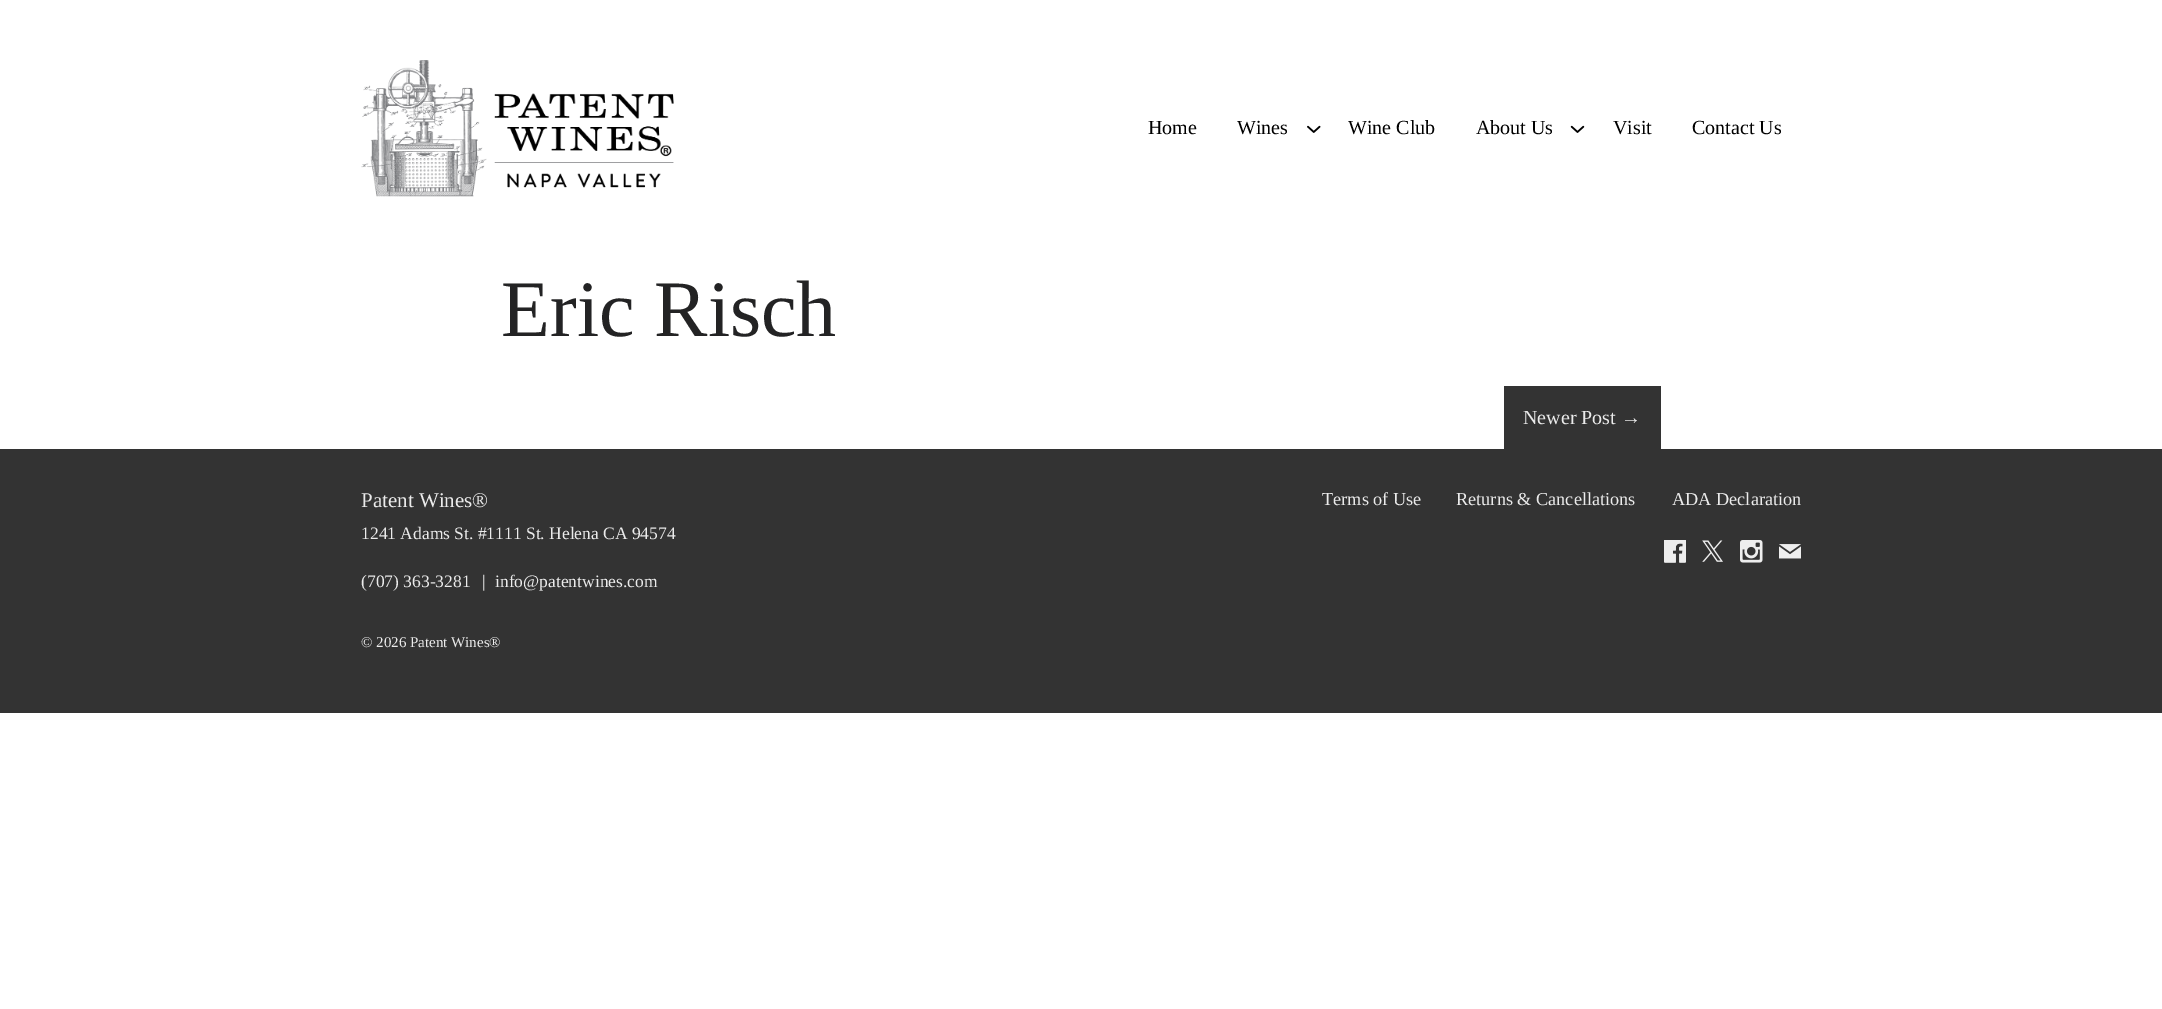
%!PS-Adobe-3.0
%%BoundingBox: 0 0 2162 1009
%%LanguageLevel: 3
%%Pages: 1
%%EndComments
%%BeginProlog
/setink { 3 { 255 div 3 1 roll } repeat setrgbcolor } def
/usefont { [ exch dup neg 0 0 3 -1 roll 0 0 ] selectfont } def
/drawtext { setink usefont moveto show } def
/fillbox { setink rectfill } def
/drawimage { 5 dict begin { /h /w /y /x /name } { exch def } forall
  gsave x y translate w h scale
  w h 8 [w 0 0 h 0 0] name (r) file false 3 colorimage grestore end } def
%%EndProlog
%%BeginSetup
<< /PageSize [2162 1009] >> setpagedevice
%%EndSetup
%%Page: 1 1
0 1009 translate 1 -1 scale
4 setmiterlimit
0 0 2162 1009 255 255 255 fillbox
(assets/img1.rgb) 361 60 313 137 drawimage
(Home) 1148 134 /LiberationSerif-Regular 20 0 0 0 drawtext
(Wines) 1237 134 /LiberationSerif-Regular 20 0 0 0 drawtext
(assets/img2.rgb) 1307 125 14 8 drawimage
(Wine Club) 1348 134 /LiberationSerif-Regular 20 0 0 0 drawtext
(About Us) 1476 134 /LiberationSerif-Regular 20 0 0 0 drawtext
(assets/img3.rgb) 1570 125 15 8 drawimage
(Visit) 1613 134 /LiberationSerif-Regular 20 0 0 0 drawtext
(Contact Us) 1692 134 /LiberationSerif-Regular 20 0 0 0 drawtext
(Eric Risch) 501 336 /LiberationSerif-Regular 80 35 35 36 drawtext
1504 386 157 63 51 51 51 fillbox
(Newer Post →) 1523 424 /LiberationSerif-Regular 20 235 235 235 drawtext
0 449 2162 264 51 51 51 fillbox
(Patent Wines®) 361 507 /LiberationSerif-Regular 21 235 235 235 drawtext
(1241 Adams St. #1111 St. Helena CA 94574) 361 539 /LiberationSerif-Regular 17.5 235 235 235 drawtext
(\(707\) 363-3281) 361 587 /LiberationSerif-Regular 17.5 235 235 235 drawtext
(|) 482 587 /LiberationSerif-Regular 17.5 235 235 235 drawtext
(info@patentwines.com) 495 587 /LiberationSerif-Regular 17.5 235 235 235 drawtext
(Terms of Use) 1322 505 /LiberationSerif-Regular 18.25 235 235 235 drawtext
(Returns & Cancellations) 1456 505 /LiberationSerif-Regular 18.25 235 235 235 drawtext
(ADA Declaration) 1672 505 /LiberationSerif-Regular 18.25 235 235 235 drawtext
(assets/img4.rgb) 1664 540 22 23 drawimage
(assets/img5.rgb) 1664 540 22 23 drawimage
(assets/img6.rgb) 1702 540 21 22 drawimage
(assets/img7.rgb) 1740 540 23 23 drawimage
(assets/img8.rgb) 1779 544 22 15 drawimage
(© 2026 Patent Wines®) 361 647 /LiberationSerif-Regular 15 235 235 235 drawtext
showpage
%%EOF
